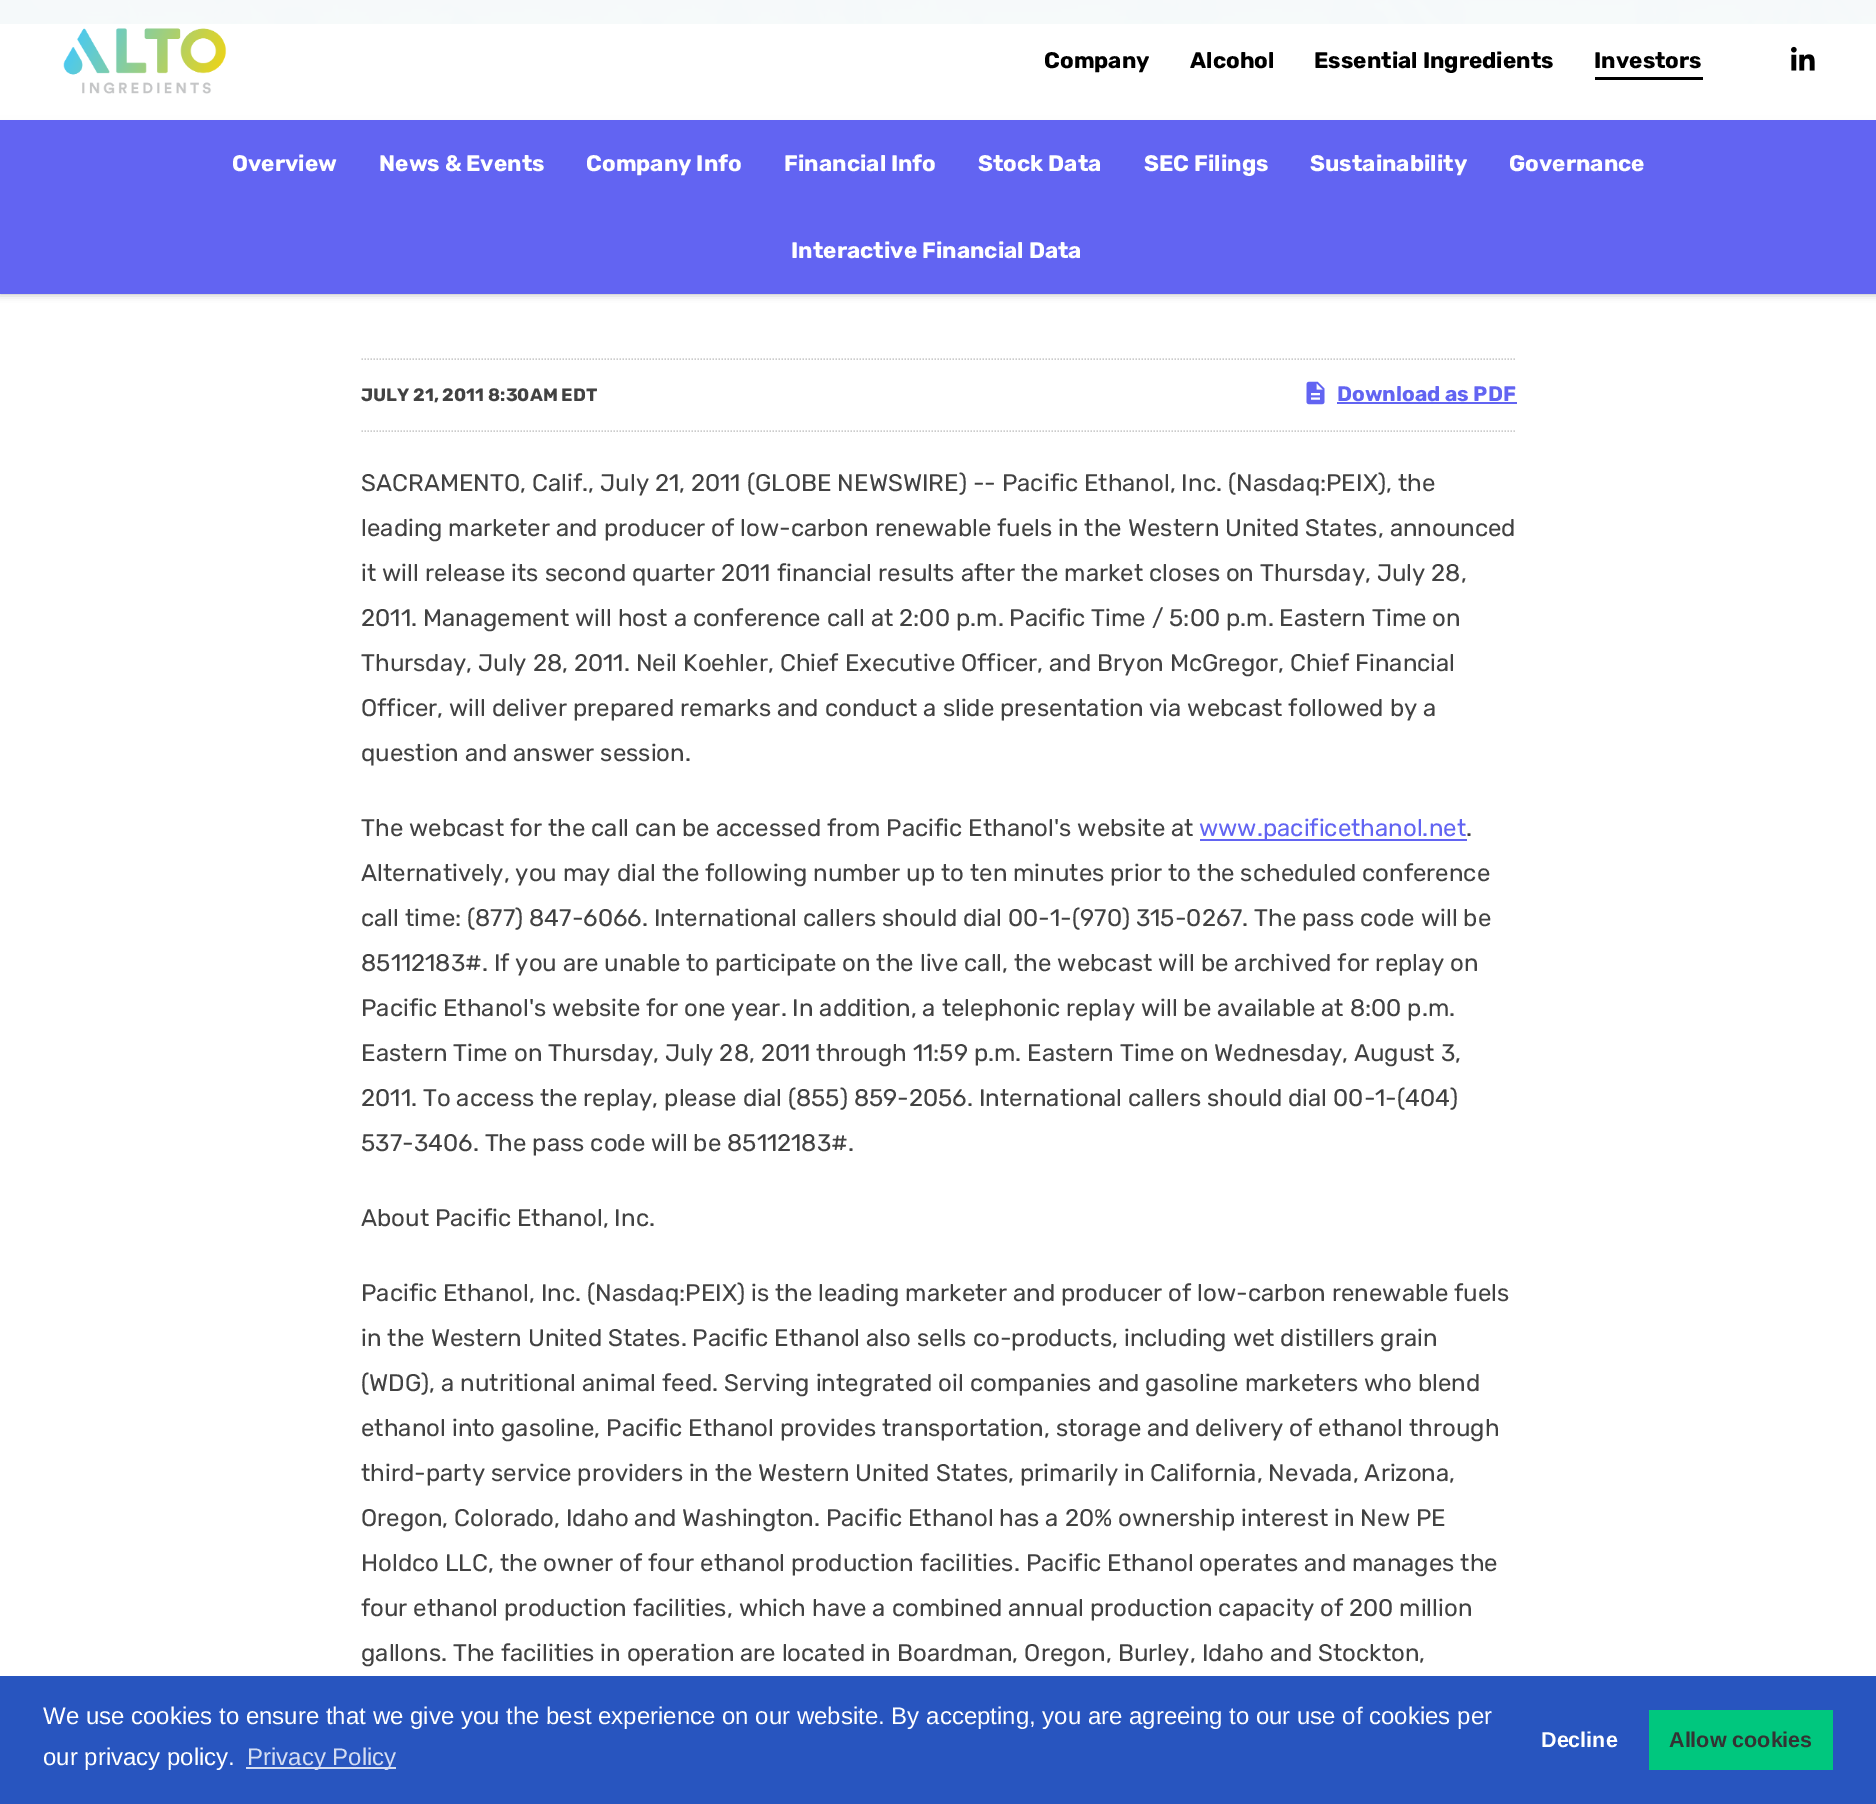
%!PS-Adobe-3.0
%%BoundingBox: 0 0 1876 1804
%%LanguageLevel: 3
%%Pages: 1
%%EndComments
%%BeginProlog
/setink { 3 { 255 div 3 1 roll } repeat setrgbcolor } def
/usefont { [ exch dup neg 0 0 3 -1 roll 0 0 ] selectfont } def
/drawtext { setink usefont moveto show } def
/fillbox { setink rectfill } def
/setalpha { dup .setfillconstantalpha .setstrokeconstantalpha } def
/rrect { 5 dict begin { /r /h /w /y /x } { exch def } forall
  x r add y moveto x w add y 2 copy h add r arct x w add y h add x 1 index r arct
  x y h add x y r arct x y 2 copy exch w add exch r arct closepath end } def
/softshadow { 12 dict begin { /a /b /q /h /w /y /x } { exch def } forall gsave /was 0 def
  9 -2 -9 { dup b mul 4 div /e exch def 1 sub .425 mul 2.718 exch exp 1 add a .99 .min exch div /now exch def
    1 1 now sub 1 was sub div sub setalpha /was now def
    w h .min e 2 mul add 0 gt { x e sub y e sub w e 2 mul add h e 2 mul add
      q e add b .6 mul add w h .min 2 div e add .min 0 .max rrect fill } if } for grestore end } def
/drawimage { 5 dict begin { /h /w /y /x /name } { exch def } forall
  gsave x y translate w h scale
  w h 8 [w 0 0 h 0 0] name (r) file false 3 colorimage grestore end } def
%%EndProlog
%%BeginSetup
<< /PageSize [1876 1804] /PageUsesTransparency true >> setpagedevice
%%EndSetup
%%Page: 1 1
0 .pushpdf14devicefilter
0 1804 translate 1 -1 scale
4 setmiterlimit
0 0 1876 1804 255 255 255 fillbox
(assets/img3.rgb) 0 0 1876 24 drawimage
0 0 0 setink
0 120 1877 174 0 4 0.3 softshadow
0.95 setalpha
0 0 1876 120 255 255 255 fillbox
1 setalpha
(assets/img1.rgb) 63 28 164 66 drawimage
(Company) 1044 68 /Rubik-Light 22.5 0 0 0 drawtext
(Alcohol) 1190 68 /Rubik-Light 22.5 0 0 0 drawtext
(Essential Ingredients) 1314 68 /Rubik-Light 22.5 0 0 0 drawtext
(Investors) 1594 68 /Rubik-Light 22.5 0 0 0 drawtext
1595 77 108 3 0 0 0 fillbox
(assets/img2.rgb) 1791 46 24 25 drawimage
0 120 1876 174 98 100 242 fillbox
(Overview) 232 171 /Rubik-Light 22.5 255 255 255 drawtext
(News & Events) 379 171 /Rubik-Light 22.5 255 255 255 drawtext
(Company Info) 586 171 /Rubik-Light 22.5 255 255 255 drawtext
(Financial Info) 784 171 /Rubik-Light 22.5 255 255 255 drawtext
(Stock Data) 978 171 /Rubik-Light 22.5 255 255 255 drawtext
(SEC Filings) 1144 171 /Rubik-Light 22.5 255 255 255 drawtext
(Sustainability) 1310 171 /Rubik-Light 22.5 255 255 255 drawtext
(Governance) 1509 171 /Rubik-Light 22.5 255 255 255 drawtext
(Interactive Financial Data) 791 258 /Rubik-Light 22.5 255 255 255 drawtext
204 204 204 setink
1.5 setlinewidth
[1.5 1.5] 0 setdash
361.5 359 moveto 1516.5 359 lineto stroke
361.5 431 moveto 1516.5 431 lineto stroke
(JULY 21, 2011 8:30AM EDT) 361 401 /Rubik-Light 18 66 66 66 drawtext
(assets/img4.rgb) 1306 381 19 24 drawimage
(Download as PDF) 1337 401 /Rubik-Light 21 98 100 242 drawtext
1337 402 180 2 98 100 242 fillbox
(SACRAMENTO, Calif., July 21, 2011 \(GLOBE NEWSWIRE\) -- Pacific Ethanol, Inc. \(Nasdaq:PEIX\), the) 361 491 /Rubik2-Light 24 66 66 66 drawtext
(leading marketer and producer of low-carbon renewable fuels in the Western United States, announced) 361 536 /Rubik2-Light 24 66 66 66 drawtext
(it will release its second quarter 2011 financial results after the market closes on Thursday, July 28,) 361 581 /Rubik2-Light 24 66 66 66 drawtext
(2011. Management will host a conference call at 2:00 p.m. Pacific Time / 5:00 p.m. Eastern Time on) 361 626 /Rubik2-Light 24 66 66 66 drawtext
(Thursday, July 28, 2011. Neil Koehler, Chief Executive Officer, and Bryon McGregor, Chief Financial) 361 671 /Rubik2-Light 24 66 66 66 drawtext
(Officer, will deliver prepared remarks and conduct a slide presentation via webcast followed by a) 361 716 /Rubik2-Light 24 66 66 66 drawtext
(question and answer session.) 361 761 /Rubik2-Light 24 66 66 66 drawtext
(The webcast for the call can be accessed from Pacific Ethanol's website at) 361 836 /Rubik2-Light 24 66 66 66 drawtext
1200 839 267 2 98 100 242 fillbox
(www.pacificethanol.net) 1199 836 /Rubik2-Light 24 98 100 242 drawtext
(.) 1466 836 /Rubik2-Light 24 66 66 66 drawtext
(Alternatively, you may dial the following number up to ten minutes prior to the scheduled conference) 361 881 /Rubik2-Light 24 66 66 66 drawtext
(call time: \(877\) 847-6066. International callers should dial 00-1-\(970\) 315-0267. The pass code will be) 361 926 /Rubik2-Light 24 66 66 66 drawtext
(85112183#. If you are unable to participate on the live call, the webcast will be archived for replay on) 361 971 /Rubik2-Light 24 66 66 66 drawtext
(Pacific Ethanol's website for one year. In addition, a telephonic replay will be available at 8:00 p.m.) 361 1016 /Rubik2-Light 24 66 66 66 drawtext
(Eastern Time on Thursday, July 28, 2011 through 11:59 p.m. Eastern Time on Wednesday, August 3,) 361 1061 /Rubik2-Light 24 66 66 66 drawtext
(2011. To access the replay, please dial \(855\) 859-2056. International callers should dial 00-1-\(404\)) 361 1106 /Rubik2-Light 24 66 66 66 drawtext
(537-3406. The pass code will be 85112183#.) 361 1151 /Rubik2-Light 24 66 66 66 drawtext
(About Pacific Ethanol, Inc.) 361 1226 /Rubik2-Light 24 66 66 66 drawtext
(Pacific Ethanol, Inc. \(Nasdaq:PEIX\) is the leading marketer and producer of low-carbon renewable fuels) 361 1301 /Rubik2-Light 24 66 66 66 drawtext
(in the Western United States. Pacific Ethanol also sells co-products, including wet distillers grain) 361 1346 /Rubik2-Light 24 66 66 66 drawtext
(\(WDG\), a nutritional animal feed. Serving integrated oil companies and gasoline marketers who blend) 361 1391 /Rubik2-Light 24 66 66 66 drawtext
(ethanol into gasoline, Pacific Ethanol provides transportation, storage and delivery of ethanol through) 361 1436 /Rubik2-Light 24 66 66 66 drawtext
(third-party service providers in the Western United States, primarily in California, Nevada, Arizona,) 361 1481 /Rubik2-Light 24 66 66 66 drawtext
(Oregon, Colorado, Idaho and Washington. Pacific Ethanol has a 20% ownership interest in New PE) 361 1526 /Rubik2-Light 24 66 66 66 drawtext
(Holdco LLC, the owner of four ethanol production facilities. Pacific Ethanol operates and manages the) 361 1571 /Rubik2-Light 24 66 66 66 drawtext
(four ethanol production facilities, which have a combined annual production capacity of 200 million) 361 1616 /Rubik2-Light 24 66 66 66 drawtext
(gallons. The facilities in operation are located in Boardman, Oregon, Burley, Idaho and Stockton,) 361 1661 /Rubik2-Light 24 66 66 66 drawtext
0 1676 1876 128 40 85 191 fillbox
(We use cookies to ensure that we give you the best experience on our website. By accepting, you are agreeing to our use of cookies per) 43 1724 /LiberationSans-Regular 24 255 255 255 drawtext
(our privacy policy.) 43 1765 /LiberationSans-Regular 24 255 255 255 drawtext
246 1767 150 2 212 221 242 fillbox
(Privacy Policy) 247 1765 /LiberationSans-Regular 24 212 221 242 drawtext
(Decline) 1541 1747 /LiberationSans-Bold 21.5 255 255 255 drawtext
1649 1710 184 60 0 199 126 fillbox
(Allow cookies) 1669 1747 /LiberationSans-Bold 21.5 51 51 51 drawtext
.poppdf14devicefilter showpage
%%EOF
